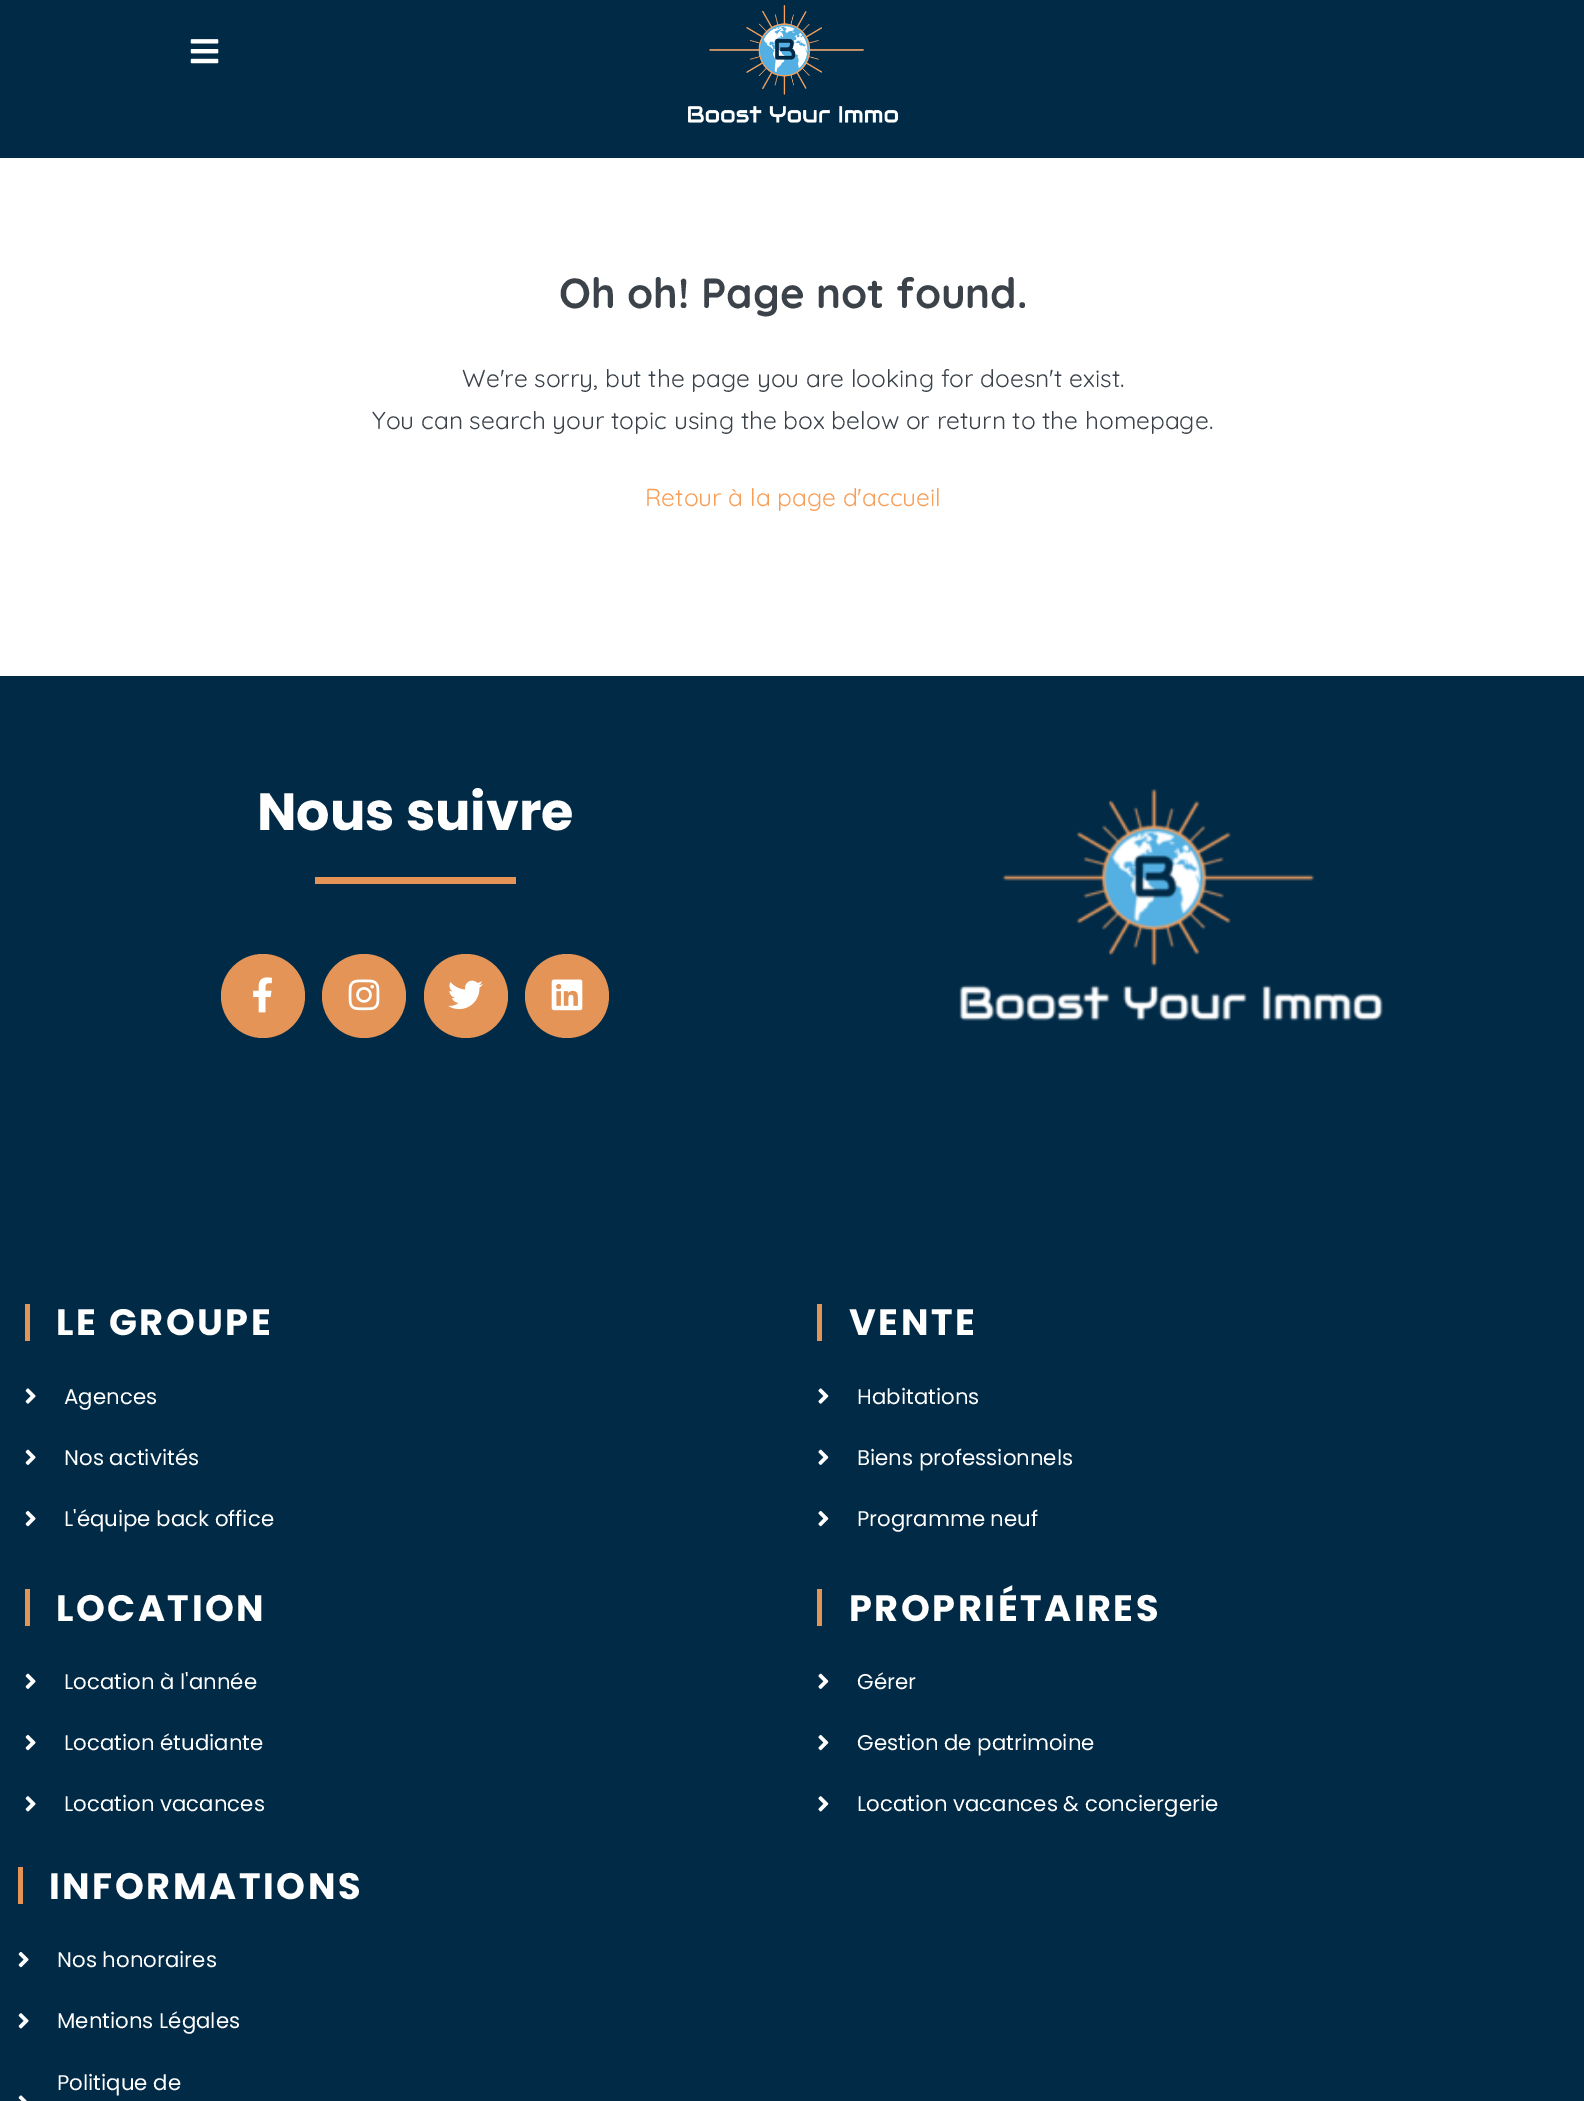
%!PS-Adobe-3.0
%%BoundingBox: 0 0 1584 2101
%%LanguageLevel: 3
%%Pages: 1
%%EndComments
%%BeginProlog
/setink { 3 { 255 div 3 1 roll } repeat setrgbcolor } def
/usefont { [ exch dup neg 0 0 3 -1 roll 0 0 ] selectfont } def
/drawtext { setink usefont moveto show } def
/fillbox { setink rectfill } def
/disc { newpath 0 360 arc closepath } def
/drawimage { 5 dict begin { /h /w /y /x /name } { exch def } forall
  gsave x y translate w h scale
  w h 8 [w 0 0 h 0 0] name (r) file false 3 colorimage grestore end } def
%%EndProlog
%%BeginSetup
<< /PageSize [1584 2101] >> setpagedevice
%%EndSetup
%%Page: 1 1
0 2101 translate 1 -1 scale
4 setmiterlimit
0 0 1584 2101 255 255 255 fillbox
0 0 1584 158 0 42 70 fillbox
(assets/img1.rgb) 190 39 29 25 drawimage
(assets/img2.rgb) 688 5 211 118 drawimage
(Oh oh! Page not found.) 559 308 /Quicksand-Bold 42 59 66 73 drawtext
(We're sorry, but the page you are looking for doesn't exist.) 462 387 /Quicksand-Regular 24.5 59 66 73 drawtext
(You can search your topic using the box below or return to the homepage.) 372 429 /Quicksand-Regular 24.5 59 66 73 drawtext
(Retour à la page d'accueil) 645 506 /Quicksand-Regular 24.5 248 158 87 drawtext
0 676 1584 1425 0 42 70 fillbox
(Nous suivre) 257 830 /Poppins-Bold 52.5 255 255 255 drawtext
315 877 201 7 227 148 86 fillbox
263 996 42 disc fill
(assets/img3.rgb) 253 977 19 36 drawimage
364 996 42 disc fill
(assets/img4.rgb) 348 979 32 32 drawimage
466 996 42 disc fill
(assets/img5.rgb) 448 980 35 30 drawimage
567 996 42 disc fill
(assets/img6.rgb) 551 979 32 32 drawimage
(assets/img7.rgb) 959 789 424 232 drawimage
25 1304 5 37 227 148 86 fillbox
/Poppins-Bold 36.75 usefont
255 255 255 setink
56 1335 moveto 2.5 0 (LE GROUPE) ashow
(assets/img8.rgb) 25 1388 11 16 drawimage
(Agences) 64 1404 /Poppins-Regular 21.3 255 255 255 drawtext
(assets/img9.rgb) 25 1449 11 16 drawimage
(Nos activités) 64 1465 /Poppins-Regular 21.3 255 255 255 drawtext
(assets/img10.rgb) 25 1510 11 17 drawimage
(L'équipe back office) 64 1526 /Poppins-Regular 21.3 255 255 255 drawtext
817 1304 5 37 227 148 86 fillbox
/Poppins-Bold 36.75 usefont
255 255 255 setink
849 1335 moveto 2.5 0 (VENTE) ashow
(assets/img11.rgb) 818 1388 11 16 drawimage
(Habitations) 857 1404 /Poppins-Regular 21.3 255 255 255 drawtext
(assets/img12.rgb) 818 1449 11 16 drawimage
(Biens professionnels) 857 1465 /Poppins-Regular 21.3 255 255 255 drawtext
(assets/img13.rgb) 818 1510 11 17 drawimage
(Programme neuf) 857 1526 /Poppins-Regular 21.3 255 255 255 drawtext
25 1589 5 37 227 148 86 fillbox
/Poppins-Bold 36.75 usefont
255 255 255 setink
56 1621 moveto 2.5 0 (LOCATION) ashow
(assets/img9.rgb) 25 1673 11 16 drawimage
(Location à l'année) 64 1689 /Poppins-Regular 21.3 255 255 255 drawtext
(assets/img10.rgb) 25 1734 11 17 drawimage
(Location étudiante) 64 1750 /Poppins-Regular 21.3 255 255 255 drawtext
(assets/img14.rgb) 25 1796 11 16 drawimage
(Location vacances) 64 1811 /Poppins-Regular 21.3 255 255 255 drawtext
817 1589 5 37 227 148 86 fillbox
/Poppins-Bold 36.75 usefont
255 255 255 setink
849 1621 moveto 2.5 0 (PROPRIÉTAIRES) ashow
(assets/img12.rgb) 818 1673 11 16 drawimage
(Gérer) 857 1689 /Poppins-Regular 21.3 255 255 255 drawtext
(assets/img13.rgb) 818 1734 11 17 drawimage
(Gestion de patrimoine) 857 1750 /Poppins-Regular 21.3 255 255 255 drawtext
(assets/img15.rgb) 818 1796 11 16 drawimage
(Location vacances & conciergerie) 857 1811 /Poppins-Regular 21.3 255 255 255 drawtext
18 1867 5 37 227 148 86 fillbox
/Poppins-Bold 36.75 usefont
255 255 255 setink
49 1899 moveto 2.5 0 (INFORMATIONS) ashow
(assets/img10.rgb) 18 1951 11 17 drawimage
(Nos honoraires) 57 1967 /Poppins-Regular 21.3 255 255 255 drawtext
(assets/img14.rgb) 18 2013 11 16 drawimage
(Mentions Légales) 57 2028 /Poppins-Regular 21.3 255 255 255 drawtext
(Politique de) 57 2090 /Poppins-Regular 21.3 255 255 255 drawtext
(assets/img16.rgb) 18 2095 9 6 drawimage
showpage
%%EOF
